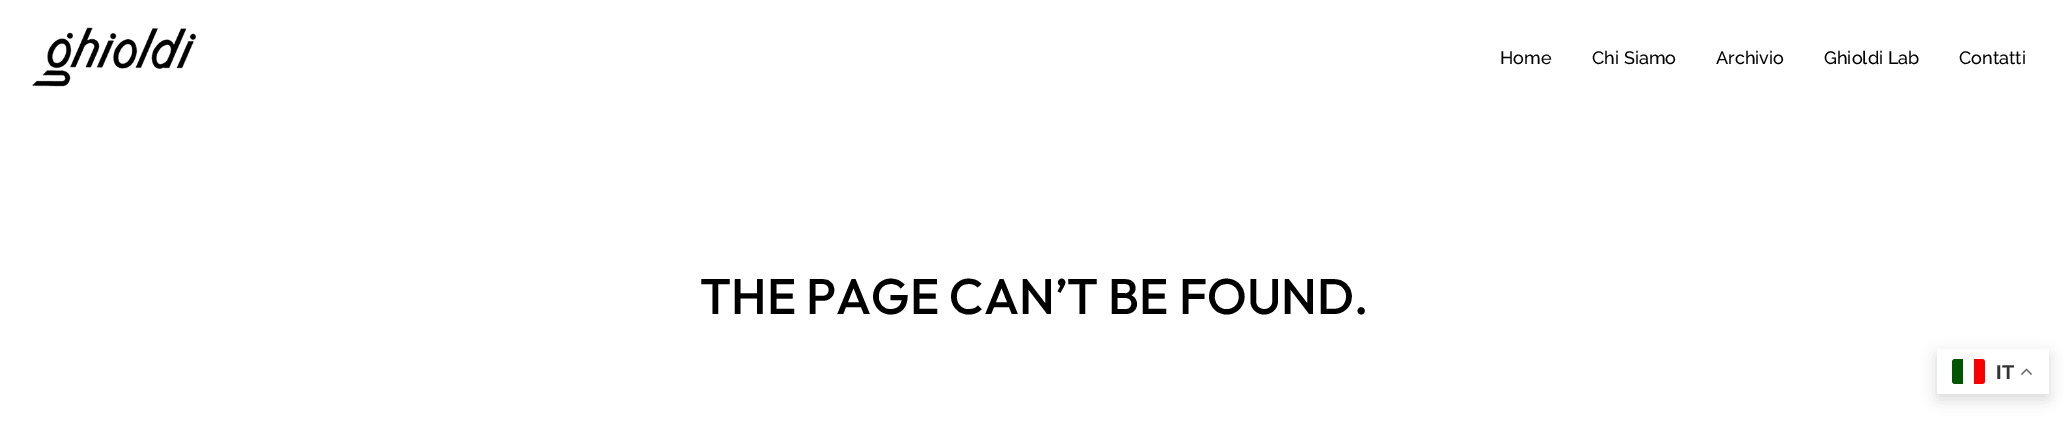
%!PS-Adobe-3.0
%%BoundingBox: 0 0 2069 422
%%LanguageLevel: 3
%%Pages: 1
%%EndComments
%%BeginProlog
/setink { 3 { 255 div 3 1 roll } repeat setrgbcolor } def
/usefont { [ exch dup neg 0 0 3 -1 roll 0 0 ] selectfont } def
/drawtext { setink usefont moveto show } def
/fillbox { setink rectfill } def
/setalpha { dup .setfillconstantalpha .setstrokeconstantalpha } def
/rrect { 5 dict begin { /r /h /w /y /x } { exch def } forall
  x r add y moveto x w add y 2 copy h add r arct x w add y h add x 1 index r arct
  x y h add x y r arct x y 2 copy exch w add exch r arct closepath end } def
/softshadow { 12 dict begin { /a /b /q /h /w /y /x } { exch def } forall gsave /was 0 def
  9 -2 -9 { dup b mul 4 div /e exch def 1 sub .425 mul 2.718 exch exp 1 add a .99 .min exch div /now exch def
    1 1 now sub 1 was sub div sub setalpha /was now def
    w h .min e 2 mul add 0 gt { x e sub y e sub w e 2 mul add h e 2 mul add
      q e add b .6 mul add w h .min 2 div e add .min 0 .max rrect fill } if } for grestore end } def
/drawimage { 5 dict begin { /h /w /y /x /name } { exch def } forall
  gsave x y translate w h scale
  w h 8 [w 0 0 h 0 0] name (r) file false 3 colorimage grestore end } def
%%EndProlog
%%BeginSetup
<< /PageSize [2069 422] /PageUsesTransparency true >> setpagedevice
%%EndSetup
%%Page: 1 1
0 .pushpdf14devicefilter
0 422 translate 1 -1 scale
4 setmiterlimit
0 0 2069 422 255 255 255 fillbox
(assets/img1.rgb) 32 27 164 60 drawimage
(Home) 1500 64 /Raleway-Medium 18 0 0 0 drawtext
(Chi Siamo) 1592 64 /Raleway-Medium 18 0 0 0 drawtext
(Archivio) 1716 64 /Raleway-Medium 18 0 0 0 drawtext
(Ghioldi Lab) 1824 64 /Raleway-Medium 18 0 0 0 drawtext
(Contatti) 1959 64 /Raleway-Medium 18 0 0 0 drawtext
(THE PAGE CAN’T BE FOUND.) 700 314 /Outfit-Medium 50 0 0 0 drawtext
1937 354 112 45 2 7.5 0.15 softshadow
255 255 255 setink
1937 349 112 45 2 rrect fill
0 87 0 setink
1955 359 moveto 1963 359 lineto 1963 384 lineto 1955 384 lineto 1953.5 384 1952 382.5 1952 381 curveto 1952 362 lineto 1952 360.5 1953.5 359 1955 359 curveto closepath fill
252 0 0 setink
1974 359 moveto 1982 359 lineto 1983.5 359 1985 360.5 1985 362 curveto 1985 381 lineto 1985 382.5 1983.5 384 1982 384 curveto 1974 384 lineto closepath fill
(IT) 1996 379 /LiberationSans-Bold 20 51 51 51 drawtext
(assets/img2.rgb) 2021 368 11 7 drawimage
.poppdf14devicefilter showpage
%%EOF
